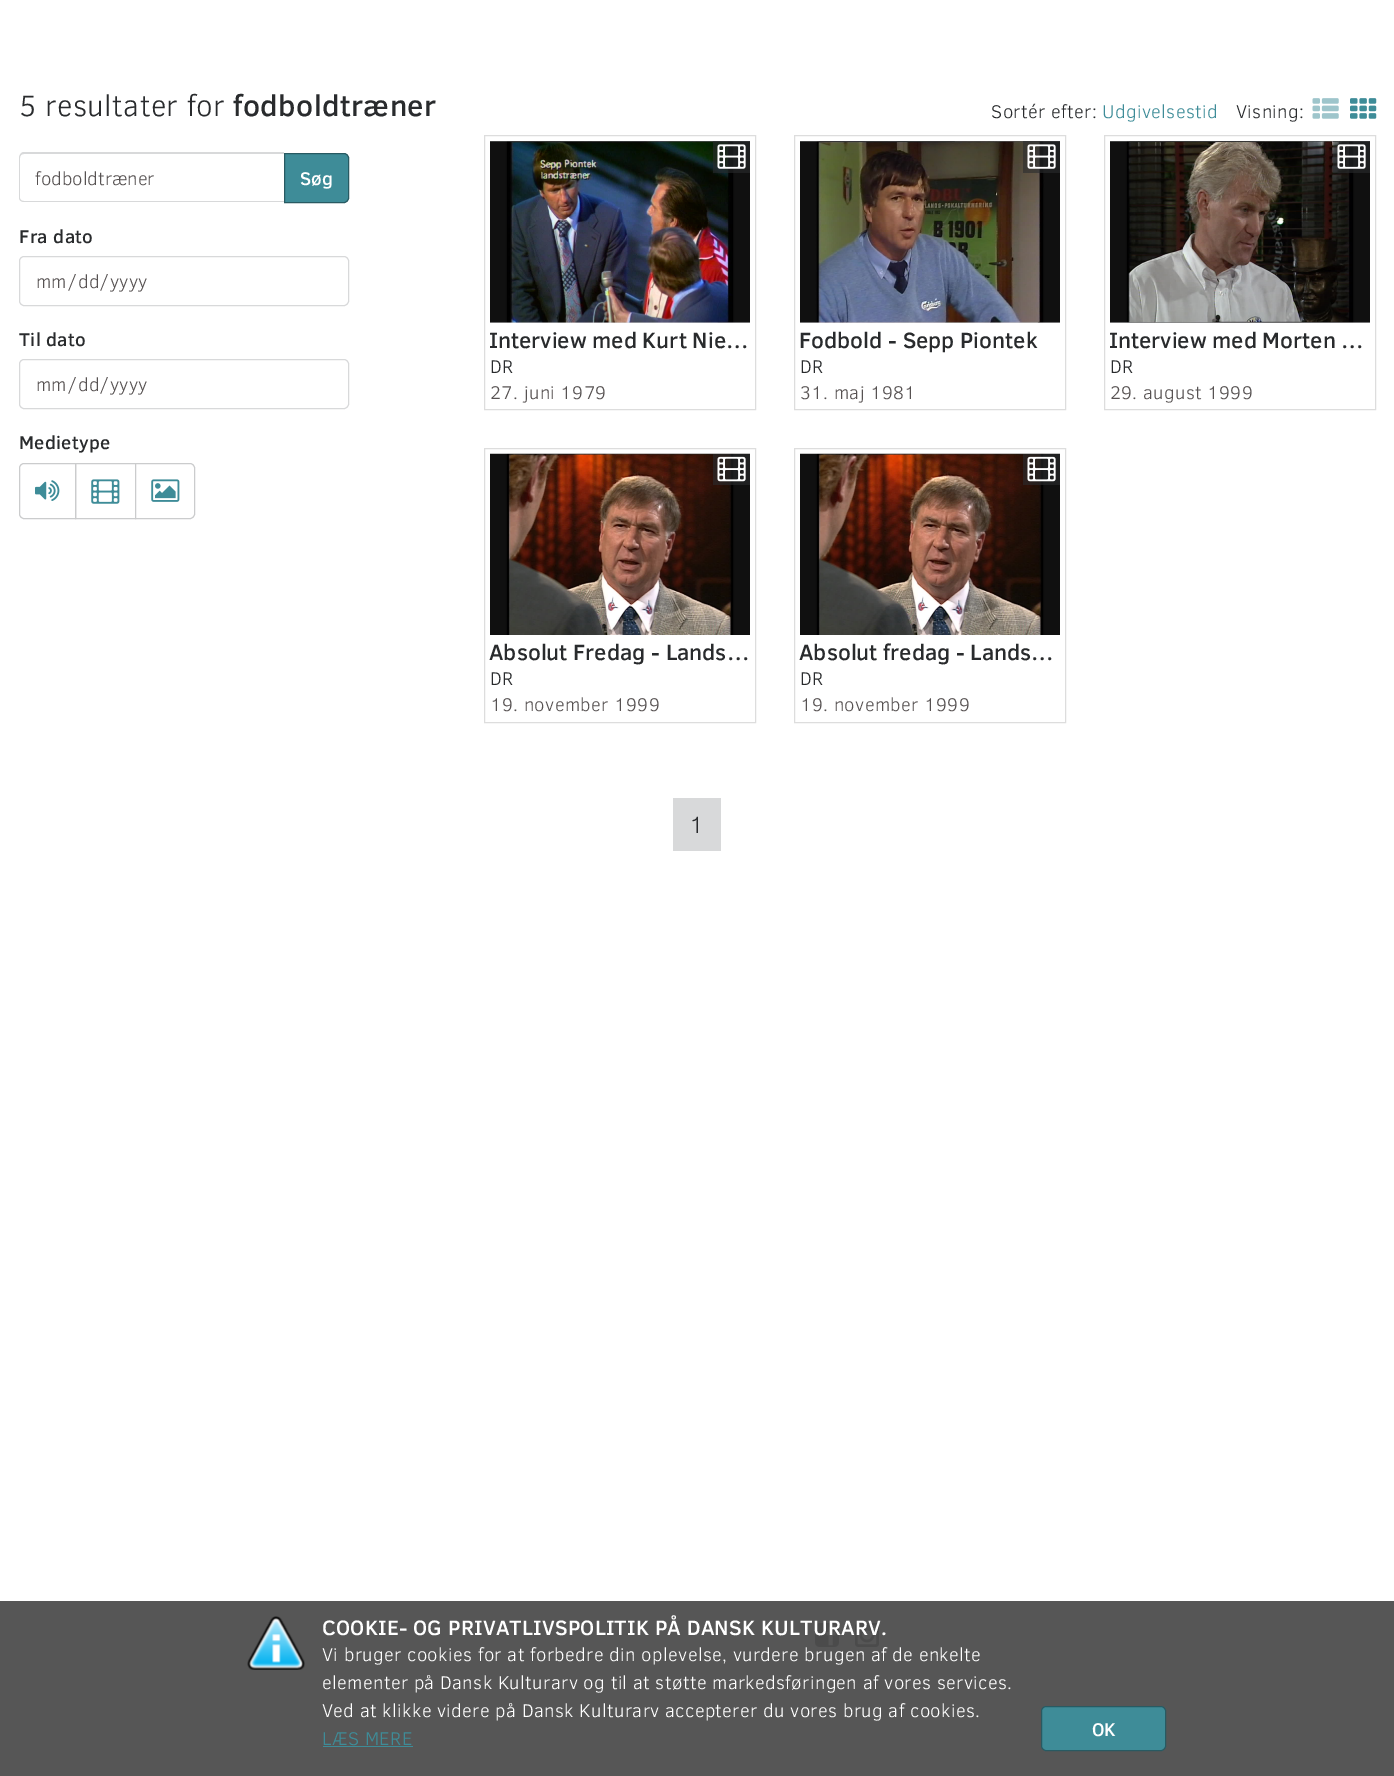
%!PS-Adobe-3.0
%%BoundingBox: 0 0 1394 1776
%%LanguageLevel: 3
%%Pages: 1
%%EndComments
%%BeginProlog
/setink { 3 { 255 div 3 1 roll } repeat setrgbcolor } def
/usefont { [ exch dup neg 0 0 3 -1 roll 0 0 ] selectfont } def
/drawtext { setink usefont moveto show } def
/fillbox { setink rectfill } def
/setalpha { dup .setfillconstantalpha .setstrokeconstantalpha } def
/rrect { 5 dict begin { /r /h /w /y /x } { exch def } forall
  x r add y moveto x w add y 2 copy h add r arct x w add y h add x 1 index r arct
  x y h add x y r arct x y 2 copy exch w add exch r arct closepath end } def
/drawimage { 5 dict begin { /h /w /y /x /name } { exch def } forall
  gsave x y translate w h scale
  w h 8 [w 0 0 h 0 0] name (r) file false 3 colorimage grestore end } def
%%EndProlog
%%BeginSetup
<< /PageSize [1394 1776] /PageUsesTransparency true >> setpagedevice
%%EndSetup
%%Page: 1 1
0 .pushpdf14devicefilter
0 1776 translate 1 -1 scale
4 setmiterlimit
0 0 1394 1776 255 255 255 fillbox
0 1601 1394 175 86 86 86 fillbox
/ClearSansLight-Light 30 usefont
41 43 45 setink
19 116 moveto 0.38 0 (5 resultater for) ashow
/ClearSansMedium-Medium 30 usefont
233 116 moveto 0.38 0 (fodboldtræner) ashow
216 217 218 setink
24 152 moveto 284 152 lineto 284 202 lineto 24 202 lineto 21 202 19 200 19 198 curveto 19 158 lineto 19 155 21 152 24 152 curveto closepath 24 154 moveto 284 154 lineto 284 201 lineto 24 201 lineto 22 201 20 200 20 198 curveto 20 158 lineto 20 155 22 154 24 154 curveto closepath eofill
(fodboldtræner) 35 185 /ClearSansLight-Light 18.75 87 82 82 drawtext
62 140 152 setink
284.5 153.5 moveto 344 153.5 lineto 346.5 153.5 348.5 155.5 348.5 158 curveto 348.5 198 lineto 348.5 200.5 346.5 202.5 344 202.5 curveto 284.5 202.5 lineto closepath gsave fill grestore
40 90 98 setink
stroke
(Søg) 300 185 /ClearSansMedium-Medium 18.75 255 255 255 drawtext
41 43 45 setink
19 243 moveto 0.38 0 (Fra dato) ashow
216 217 218 setink
19.5 256.5 329 49 4.5 rrect stroke
(mm) 36 288 /ClearSansLight-Light 18.75 87 82 82 drawtext
(/) 68 288 /ClearSansLight-Light 18.75 87 82 82 drawtext
(dd) 78 288 /ClearSansLight-Light 18.75 87 82 82 drawtext
(/) 100 288 /ClearSansLight-Light 18.75 87 82 82 drawtext
(yyyy) 110 288 /ClearSansLight-Light 18.75 87 82 82 drawtext
/ClearSansMedium-Medium 18.75 usefont
41 43 45 setink
19 346 moveto 0.38 0 (Til dato) ashow
216 217 218 setink
19.5 359.5 329 49 4.5 rrect stroke
(mm) 36 391 /ClearSansLight-Light 18.75 87 82 82 drawtext
(/) 68 391 /ClearSansLight-Light 18.75 87 82 82 drawtext
(dd) 78 391 /ClearSansLight-Light 18.75 87 82 82 drawtext
(/) 100 391 /ClearSansLight-Light 18.75 87 82 82 drawtext
(yyyy) 110 391 /ClearSansLight-Light 18.75 87 82 82 drawtext
/ClearSansMedium-Medium 18.75 usefont
41 43 45 setink
19 449 moveto 0.38 0 (Medietype) ashow
203 204 205 setink
24 463.5 moveto 75.5 463.5 lineto 75.5 518.5 lineto 24 518.5 lineto 21.5 518.5 19.5 516.5 19.5 514 curveto 19.5 468 lineto 19.5 465.5 21.5 463.5 24 463.5 curveto closepath stroke
(assets/img1.rgb) 35 480 25 21 drawimage
75.5 463.5 60 55 rectstroke
(assets/img2.rgb) 91 479 29 25 drawimage
255 255 255 setink
135.5 463.5 moveto 190 463.5 lineto 192.5 463.5 194.5 465.5 194.5 468 curveto 194.5 514 lineto 194.5 516.5 192.5 518.5 190 518.5 curveto 135.5 518.5 lineto closepath gsave fill grestore
203 204 205 setink
stroke
(assets/img3.rgb) 151 479 29 23 drawimage
/ClearSansLight-Light 18.75 usefont
41 43 45 setink
991 118 moveto 0.38 0 (Sortér efter:) ashow
62 140 152 setink
1102 118 moveto 0.38 0 (Udgivelsestid) ashow
41 43 45 setink
1236 118 moveto 0.38 0 (Visning:) ashow
(assets/img4.rgb) 1312 98 27 21 drawimage
(assets/img5.rgb) 1350 98 27 21 drawimage
221 221 221 setink
484.5 135.5 271 274 rectstroke
490 141 260 182 216 217 218 fillbox
(assets/img6.rgb) 490 141 260 182 drawimage
0.6 setalpha
713 141 37 32 41 43 45 fillbox
1 setalpha
(assets/img7.rgb) 717 144 29 25 drawimage
(Interview med Kurt Nie…) 489 348 /ClearSansMedium-Medium 22.5 41 43 45 drawtext
/ClearSansLight-Light 18.75 usefont
490 373 moveto 0.38 0 (DR) ashow
87 82 82 setink
490 399 moveto 0.38 0 (27. juni 1979) ashow
221 221 221 setink
794.5 135.5 271 274 rectstroke
800 141 260 182 216 217 218 fillbox
(assets/img8.rgb) 800 141 260 182 drawimage
0.6 setalpha
1023 141 37 32 41 43 45 fillbox
1 setalpha
(assets/img9.rgb) 1027 144 29 25 drawimage
(Fodbold - Sepp Piontek) 799 348 /ClearSansMedium-Medium 22.5 41 43 45 drawtext
/ClearSansLight-Light 18.75 usefont
800 373 moveto 0.38 0 (DR) ashow
87 82 82 setink
800 399 moveto 0.38 0 (31. maj 1981) ashow
221 221 221 setink
1104.5 135.5 271 274 rectstroke
1110 141 260 182 216 217 218 fillbox
(assets/img10.rgb) 1110 141 260 182 drawimage
0.6 setalpha
1333 141 37 32 41 43 45 fillbox
1 setalpha
(assets/img11.rgb) 1337 144 29 25 drawimage
(Interview med Morten …) 1109 348 /ClearSansMedium-Medium 22.5 41 43 45 drawtext
/ClearSansLight-Light 18.75 usefont
1110 373 moveto 0.38 0 (DR) ashow
87 82 82 setink
1110 399 moveto 0.38 0 (29. august 1999) ashow
221 221 221 setink
484.5 448.5 271 274 rectstroke
(assets/img12.rgb) 490 453 260 182 drawimage
0.6 setalpha
713 454 37 31 41 43 45 fillbox
1 setalpha
(assets/img13.rgb) 717 456 29 26 drawimage
(Absolut Fredag - Lands…) 489 660 /ClearSansMedium-Medium 22.5 41 43 45 drawtext
/ClearSansLight-Light 18.75 usefont
490 685 moveto 0.38 0 (DR) ashow
87 82 82 setink
490 711 moveto 0.38 0 (19. november 1999) ashow
221 221 221 setink
794.5 448.5 271 274 rectstroke
(assets/img12.rgb) 800 453 260 182 drawimage
0.6 setalpha
1023 454 37 31 41 43 45 fillbox
1 setalpha
(assets/img13.rgb) 1027 456 29 26 drawimage
(Absolut fredag - Lands…) 799 660 /ClearSansMedium-Medium 22.5 41 43 45 drawtext
/ClearSansLight-Light 18.75 usefont
800 685 moveto 0.38 0 (DR) ashow
87 82 82 setink
800 711 moveto 0.38 0 (19. november 1999) ashow
673 798 48 53 216 217 218 fillbox
/ClearSansLight-Light 24 usefont
41 43 45 setink
689 833 moveto 0.38 0 (1) ashow
(assets/img14.rgb) 247 1616 58 54 drawimage
(assets/img15.rgb) 815 1623 24 24 drawimage
(assets/img16.rgb) 855 1623 24 24 drawimage
/ClearSansMedium-Medium 21.25 usefont
255 255 255 setink
322 1635 moveto 0.2 0 (COOKIE- OG PRIVATLIVSPOLITIK PÅ DANSK KULTURARV.) ashow
/ClearSansLight-Light 18.75 usefont
322 1661 moveto 0.38 0 (Vi bruger cookies for at forbedre din oplevelse, vurdere brugen af de enkelte) ashow
322 1689 moveto 0.38 0 (elementer på Dansk Kulturarv og til at støtte markedsføringen af vores services.) ashow
322 1717 moveto 0.38 0 (Ved at klikke videre på Dansk Kulturarv accepterer du vores brug af cookies.) ashow
62 140 152 setink
322 1745 moveto 0.38 0 (LÆS MERE) ashow
323 1746 90 1 62 140 152 fillbox
1041.5 1706.5 124 44 4.5 rrect gsave fill grestore
40 90 98 setink
stroke
(OK) 1092 1736 /ClearSansMedium-Medium 18.75 255 255 255 drawtext
.poppdf14devicefilter showpage
%%EOF
